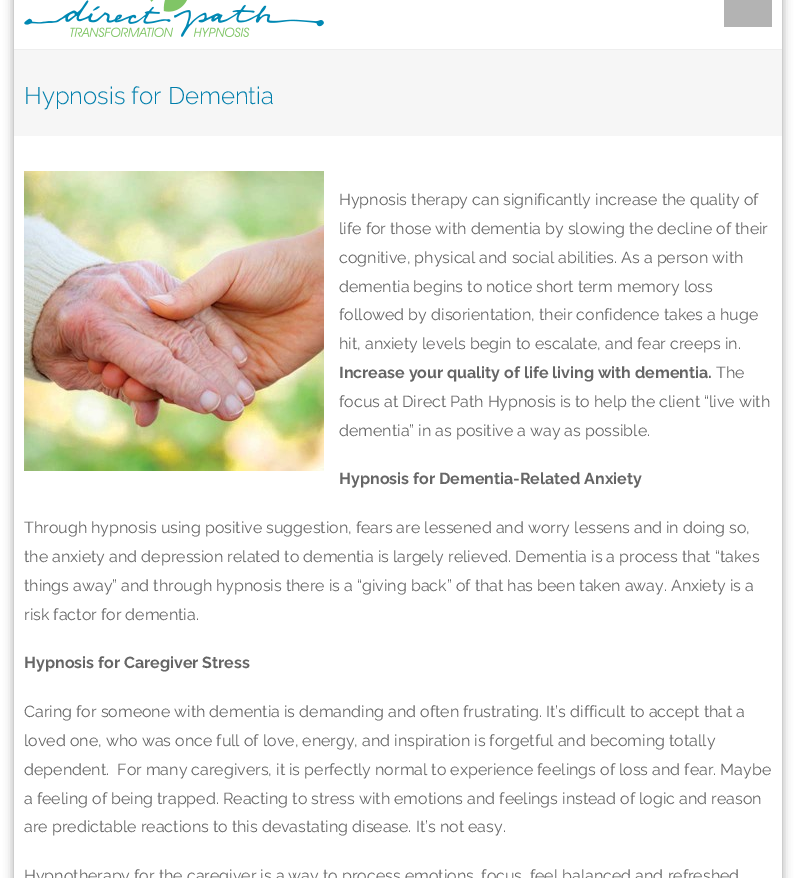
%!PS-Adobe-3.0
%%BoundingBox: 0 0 796 878
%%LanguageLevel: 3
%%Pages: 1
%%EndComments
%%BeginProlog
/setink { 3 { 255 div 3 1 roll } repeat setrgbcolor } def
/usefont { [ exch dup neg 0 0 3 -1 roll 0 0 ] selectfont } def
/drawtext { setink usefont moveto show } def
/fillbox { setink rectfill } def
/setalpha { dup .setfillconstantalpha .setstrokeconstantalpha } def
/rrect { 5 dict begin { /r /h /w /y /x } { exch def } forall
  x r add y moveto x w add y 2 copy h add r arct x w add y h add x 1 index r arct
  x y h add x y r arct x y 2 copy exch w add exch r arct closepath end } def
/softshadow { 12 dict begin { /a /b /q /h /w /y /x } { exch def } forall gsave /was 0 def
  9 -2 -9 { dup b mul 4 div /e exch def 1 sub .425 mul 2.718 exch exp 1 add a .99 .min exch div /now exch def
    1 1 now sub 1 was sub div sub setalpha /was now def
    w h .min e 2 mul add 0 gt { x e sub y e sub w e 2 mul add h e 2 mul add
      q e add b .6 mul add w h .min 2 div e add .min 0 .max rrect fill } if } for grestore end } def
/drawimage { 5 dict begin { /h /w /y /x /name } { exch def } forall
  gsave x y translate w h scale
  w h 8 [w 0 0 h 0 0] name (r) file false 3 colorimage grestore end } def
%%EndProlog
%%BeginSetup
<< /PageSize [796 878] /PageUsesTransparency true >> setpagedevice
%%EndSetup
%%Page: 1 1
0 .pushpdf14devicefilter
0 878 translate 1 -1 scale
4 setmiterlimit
0 0 796 878 255 255 255 fillbox
gsave
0 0 moveto 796 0 lineto 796 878 lineto 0 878 lineto closepath 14 -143 moveto 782 -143 lineto 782 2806 lineto 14 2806 lineto closepath eoclip newpath
153 153 153 setink
14 -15 768 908 0 5 1 softshadow
grestore
14 49 768 1 238 238 238 fillbox
(assets/img1.rgb) 24 0 300 37 drawimage
724 0 48 27 179 179 179 fillbox
14 50 768 86 246 246 246 fillbox
(Hypnosis for Dementia) 24 104 /Raleway-Light 24 0 126 171 drawtext
(assets/img2.rgb) 24 171 300 300 drawimage
(Hypnosis therapy can significantly increase the quality of) 339 205 /Raleway-Regular 16 102 102 102 drawtext
(life for those with dementia by slowing the decline of their) 339 234 /Raleway-Regular 16 102 102 102 drawtext
(cognitive, physical and social abilities. As a person with) 339 263 /Raleway-Regular 16 102 102 102 drawtext
(dementia begins to notice short term memory loss) 339 292 /Raleway-Regular 16 102 102 102 drawtext
(followed by disorientation, their confidence takes a huge) 339 320 /Raleway-Regular 16 102 102 102 drawtext
(hit, anxiety levels begin to escalate, and fear creeps in.) 339 349 /Raleway-Regular 16 102 102 102 drawtext
(Increase your quality of life living with dementia.) 339 378 /Raleway-Bold 16 102 102 102 drawtext
(The) 716 378 /Raleway-Regular 16 102 102 102 drawtext
(focus at Direct Path Hypnosis is to help the client “live with) 339 407 /Raleway-Regular 16 102 102 102 drawtext
(dementia” in as positive a way as possible.) 339 436 /Raleway-Regular 16 102 102 102 drawtext
(Hypnosis for Dementia-Related Anxiety) 339 484 /Raleway-Bold 16 102 102 102 drawtext
(Through hypnosis using positive suggestion, fears are lessened and worry lessens and in doing so,) 24 533 /Raleway-Regular 16 102 102 102 drawtext
(the anxiety and depression related to dementia is largely relieved. Dementia is a process that “takes) 24 562 /Raleway-Regular 16 102 102 102 drawtext
(things away” and through hypnosis there is a “giving back” of that has been taken away. Anxiety is a) 24 591 /Raleway-Regular 16 102 102 102 drawtext
(risk factor for dementia.) 24 620 /Raleway-Regular 16 102 102 102 drawtext
(Hypnosis for Caregiver Stress) 24 668 /Raleway-Bold 16 102 102 102 drawtext
(Caring for someone with dementia is demanding and often frustrating. It’s difficult to accept that a) 24 717 /Raleway-Regular 16 102 102 102 drawtext
(loved one, who was once full of love, energy, and inspiration is forgetful and becoming totally) 24 746 /Raleway-Regular 16 102 102 102 drawtext
(dependent.  For many caregivers, it is perfectly normal to experience feelings of loss and fear. Maybe) 24 775 /Raleway-Regular 16 102 102 102 drawtext
(a feeling of being trapped. Reacting to stress with emotions and feelings instead of logic and reason) 24 804 /Raleway-Regular 16 102 102 102 drawtext
(are predictable reactions to this devastating disease. It’s not easy.) 24 832 /Raleway-Regular 16 102 102 102 drawtext
(Hypnotherapy for the caregiver is a way to process emotions, focus, feel balanced and refreshed) 24 881 /Raleway-Regular 16 102 102 102 drawtext
.poppdf14devicefilter showpage
%%EOF
